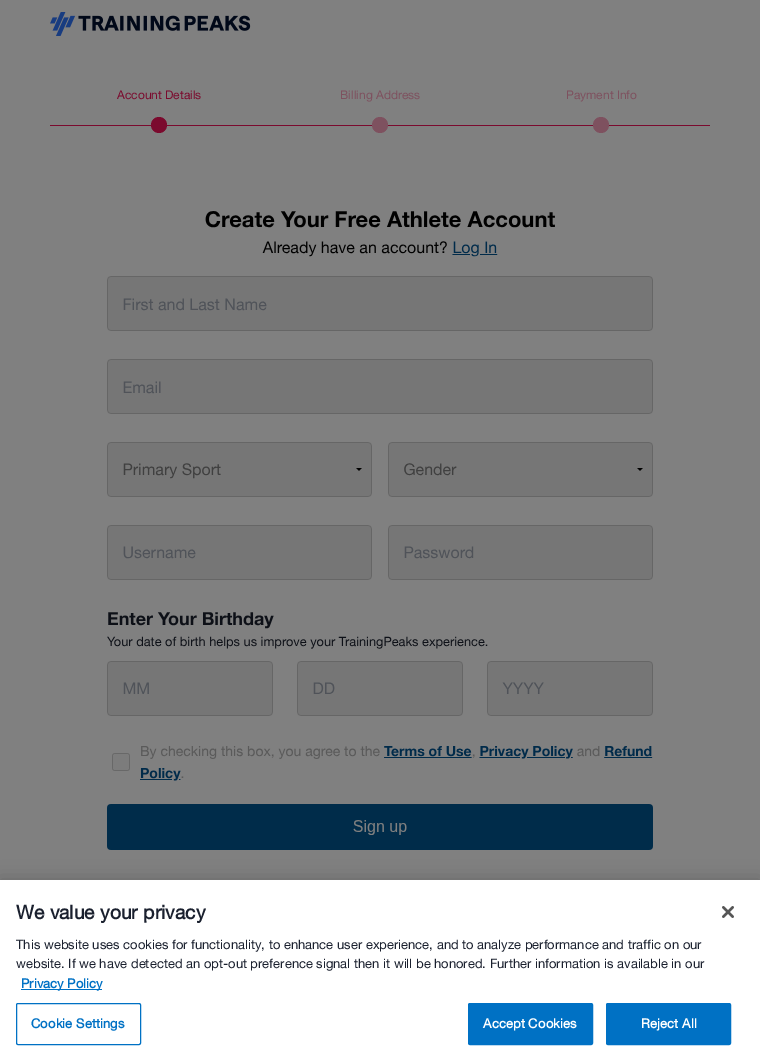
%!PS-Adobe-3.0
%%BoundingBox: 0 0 760 1064
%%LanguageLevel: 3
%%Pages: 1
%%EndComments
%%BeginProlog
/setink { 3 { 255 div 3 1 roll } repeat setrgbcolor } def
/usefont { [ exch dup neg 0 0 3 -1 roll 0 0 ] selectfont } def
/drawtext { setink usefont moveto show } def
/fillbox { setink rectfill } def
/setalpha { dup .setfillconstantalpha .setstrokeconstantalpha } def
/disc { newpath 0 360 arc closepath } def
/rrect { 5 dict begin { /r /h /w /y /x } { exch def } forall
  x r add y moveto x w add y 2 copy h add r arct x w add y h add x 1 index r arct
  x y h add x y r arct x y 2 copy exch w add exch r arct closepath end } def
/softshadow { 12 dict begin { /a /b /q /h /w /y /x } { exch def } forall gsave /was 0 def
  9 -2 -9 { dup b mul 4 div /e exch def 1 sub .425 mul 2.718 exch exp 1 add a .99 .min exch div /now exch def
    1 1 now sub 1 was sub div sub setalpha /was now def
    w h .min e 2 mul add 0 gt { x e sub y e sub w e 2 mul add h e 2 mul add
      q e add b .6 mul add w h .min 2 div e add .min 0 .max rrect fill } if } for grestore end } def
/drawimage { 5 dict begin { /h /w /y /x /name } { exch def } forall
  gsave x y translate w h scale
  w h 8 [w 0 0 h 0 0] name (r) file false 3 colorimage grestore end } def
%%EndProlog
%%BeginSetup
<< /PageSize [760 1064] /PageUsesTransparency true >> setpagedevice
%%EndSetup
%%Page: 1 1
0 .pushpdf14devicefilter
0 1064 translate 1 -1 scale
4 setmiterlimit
0 0 760 1064 128 128 128 fillbox
(assets/img1.rgb) 50 12 201 24 drawimage
(Account Details) 117 99 /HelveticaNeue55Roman-Regular 12 123 10 46 drawtext
50 125 660 1 123 10 46 fillbox
159 125 8 disc fill
(Billing Address) 340 99 /HelveticaNeue55Roman-Regular 12 126 81 95 drawtext
128 128 128 setink
380 125 8 disc fill
0.4 setalpha
123 10 46 setink
380 125 8 disc fill
1 setalpha
(Payment Info) 566 99 /HelveticaNeue55Roman-Regular 12 126 81 95 drawtext
128 128 128 setink
601 125 8 disc fill
0.4 setalpha
123 10 46 setink
601 125 8 disc fill
1 setalpha
(assets/img2.rgb) 107 211 546 639 drawimage
0 0 0 setink
0 880 760 184 0 9 0.2 softshadow
0 880 760 184 255 255 255 fillbox
(We value your privacy) 16 919 /HelveticaNeue55Roman-Bold 19.25 26 32 46 drawtext
(This website uses cookies for functionality, to enhance user experience, and to analyze performance and traffic on our) 16 949 /HelveticaNeue55Roman-Regular 13 26 32 46 drawtext
(website. If we have detected an opt-out preference signal then it will be honored. Further information is available in our) 16 968 /HelveticaNeue55Roman-Regular 13 26 32 46 drawtext
21 989 81 1 0 113 196 fillbox
(Privacy Policy) 21 988 /HelveticaNeue55Roman-Bold 13 0 113 196 drawtext
16.5 1003.5 124 41 1.5 rrect stroke
31 1028 moveto 0.1 0 (Cookie Settings) ashow
468.5 1003.5 124 41 1.5 rrect gsave fill grestore
stroke
255 255 255 setink
483 1028 moveto 0.1 0 (Accept Cookies) ashow
0 113 196 setink
606.5 1003.5 124 41 1.5 rrect gsave fill grestore
stroke
255 255 255 setink
641 1028 moveto 0.1 0 (Reject All) ashow
(assets/img3.rgb) 722 906 12 12 drawimage
.poppdf14devicefilter showpage
%%EOF
